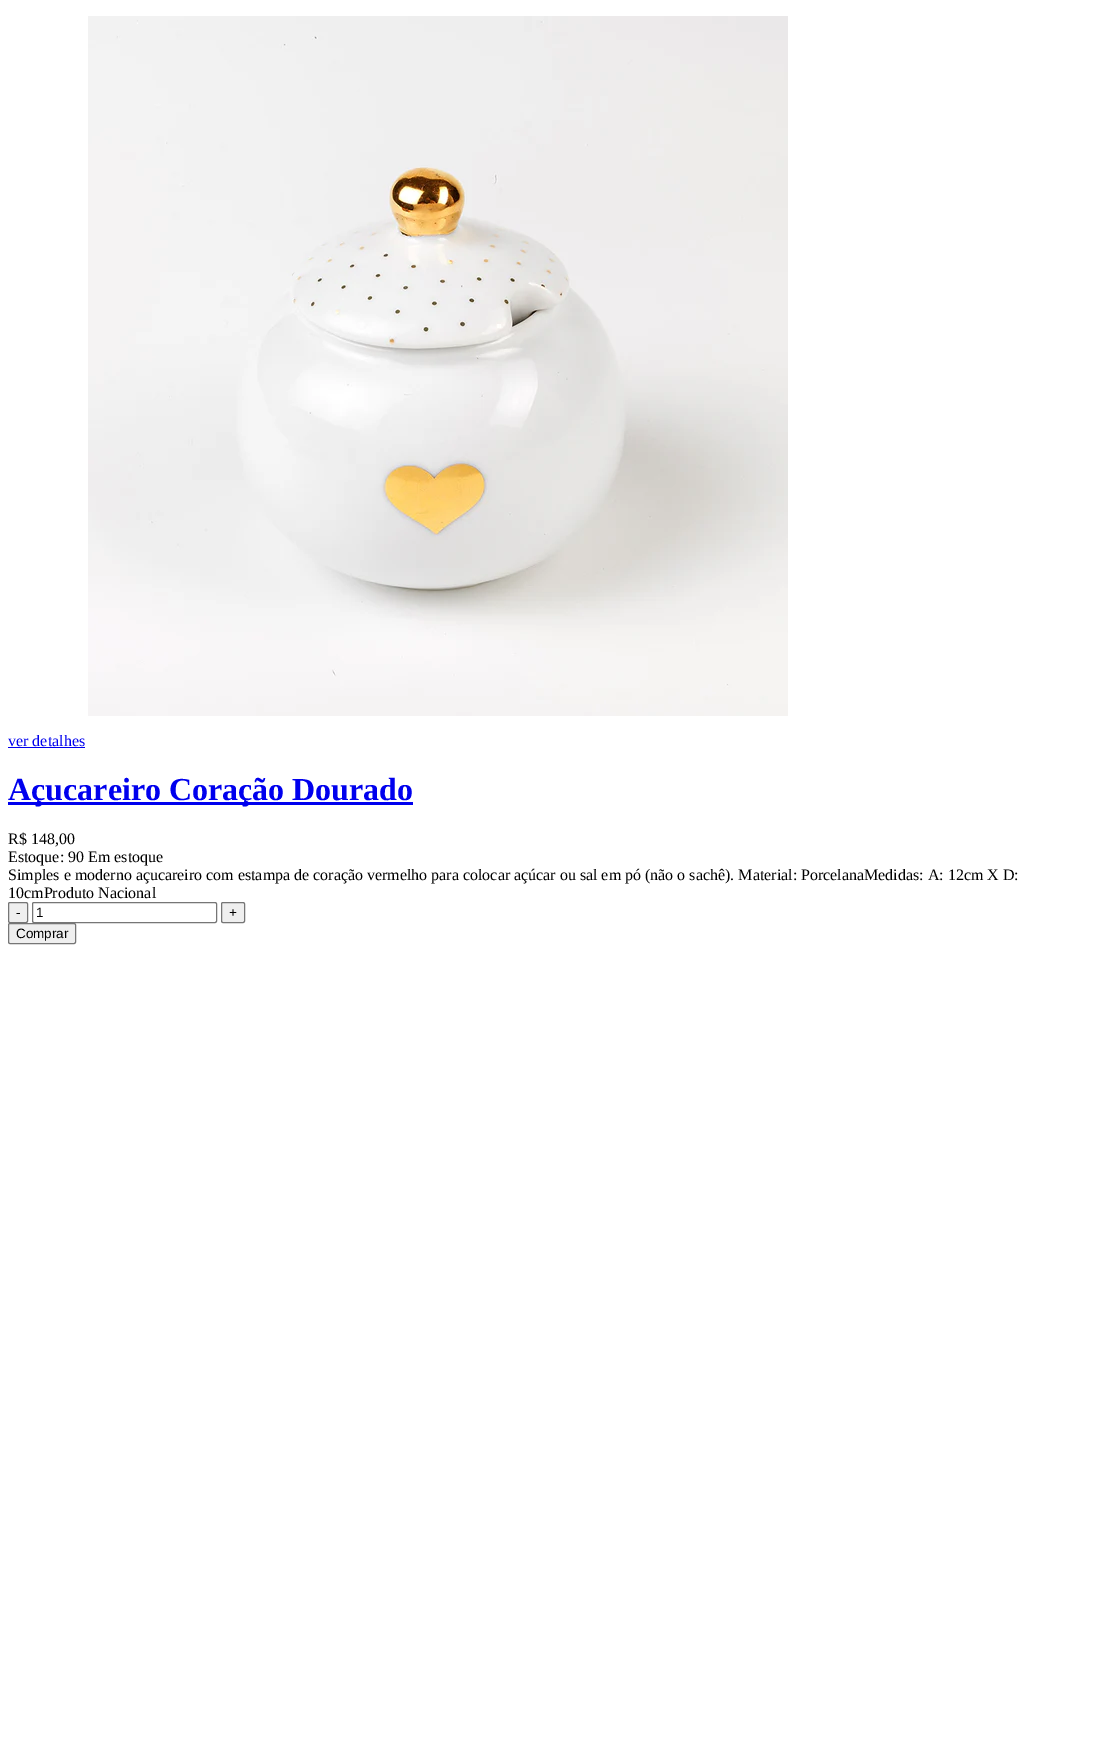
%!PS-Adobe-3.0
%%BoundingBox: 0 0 1105 1749
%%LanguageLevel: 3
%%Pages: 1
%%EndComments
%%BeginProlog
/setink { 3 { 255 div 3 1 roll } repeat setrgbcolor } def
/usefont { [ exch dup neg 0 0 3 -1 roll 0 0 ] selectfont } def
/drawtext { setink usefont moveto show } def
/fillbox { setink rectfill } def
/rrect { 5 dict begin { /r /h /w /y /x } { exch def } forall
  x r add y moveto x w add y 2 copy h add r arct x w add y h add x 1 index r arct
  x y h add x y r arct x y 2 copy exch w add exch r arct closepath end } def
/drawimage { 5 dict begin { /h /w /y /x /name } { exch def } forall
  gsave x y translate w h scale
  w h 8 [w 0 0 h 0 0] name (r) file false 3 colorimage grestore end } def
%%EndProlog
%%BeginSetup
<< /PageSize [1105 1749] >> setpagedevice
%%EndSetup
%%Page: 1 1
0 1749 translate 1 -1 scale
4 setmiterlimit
0 0 1105 1749 255 255 255 fillbox
(assets/img1.rgb) 88 16 700 700 drawimage
(ver detalhes) 8 746 /LiberationSerif-Regular 16 0 0 238 drawtext
8 747 77 1 0 0 238 fillbox
8 802 405 3 0 0 238 fillbox
(Açucareiro Coração Dourado) 8 800 /LiberationSerif-Bold 32 0 0 238 drawtext
(R$ 148,00) 8 844 /LiberationSerif-Regular 16 0 0 0 drawtext
(Estoque: 90 Em estoque) 8 862 /LiberationSerif-Regular 16 0 0 0 drawtext
(Simples e moderno açucareiro com estampa de coração vermelho para colocar açúcar ou sal em pó \(não o sachê\). Material: PorcelanaMedidas: A: 12cm X D:) 8 880 /LiberationSerif-Regular 16 0 0 0 drawtext
(10cmProduto Nacional) 8 898 /LiberationSerif-Regular 16 0 0 0 drawtext
239 239 239 setink
8.5 902.5 19 20 1.5 rrect gsave fill grestore
118 118 118 setink
stroke
(-) 16 917 /LiberationSans-Regular 13.5 0 0 0 drawtext
118 118 118 setink
32.5 902.5 184 20 1.5 rrect stroke
(1) 36 917 /LiberationSans-Regular 13.5 0 0 0 drawtext
239 239 239 setink
221.5 902.5 23 20 1.5 rrect gsave fill grestore
118 118 118 setink
stroke
(+) 229 917 /LiberationSans-Regular 13.5 0 0 0 drawtext
239 239 239 setink
8.5 923.5 67 20 1.5 rrect gsave fill grestore
118 118 118 setink
stroke
(Comprar) 16 938 /LiberationSans-Regular 13.5 0 0 0 drawtext
showpage
%%EOF
